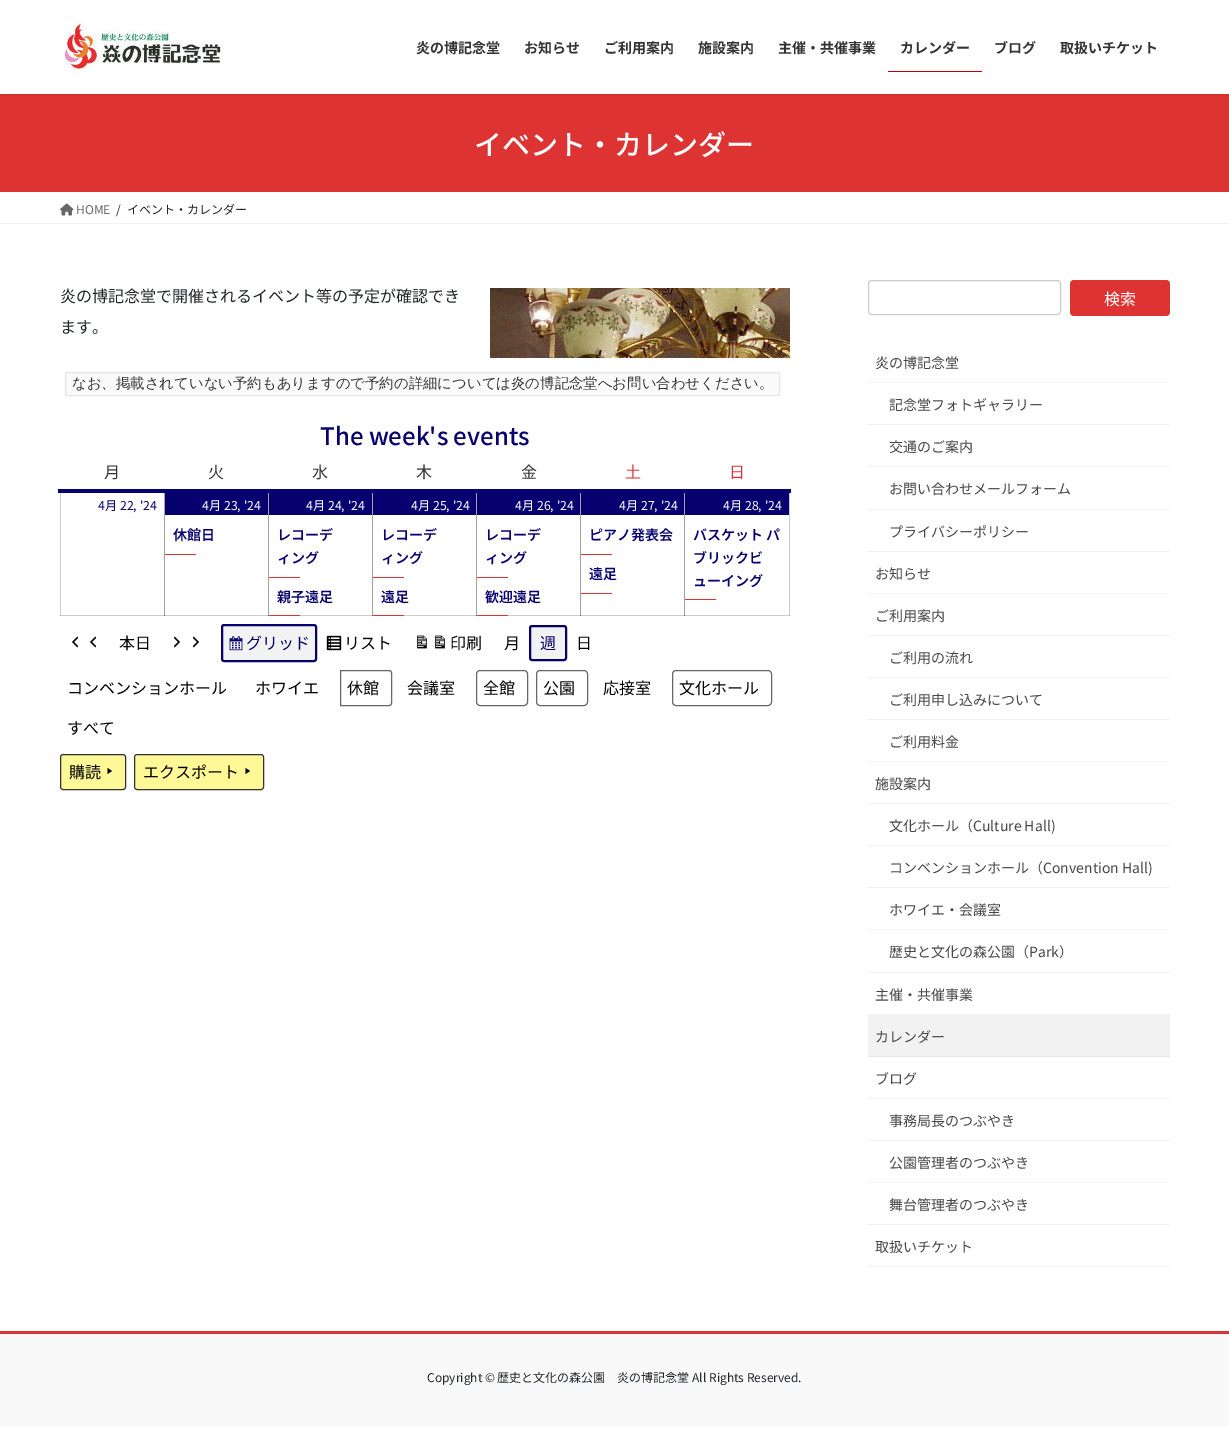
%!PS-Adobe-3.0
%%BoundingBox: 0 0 1229 1436
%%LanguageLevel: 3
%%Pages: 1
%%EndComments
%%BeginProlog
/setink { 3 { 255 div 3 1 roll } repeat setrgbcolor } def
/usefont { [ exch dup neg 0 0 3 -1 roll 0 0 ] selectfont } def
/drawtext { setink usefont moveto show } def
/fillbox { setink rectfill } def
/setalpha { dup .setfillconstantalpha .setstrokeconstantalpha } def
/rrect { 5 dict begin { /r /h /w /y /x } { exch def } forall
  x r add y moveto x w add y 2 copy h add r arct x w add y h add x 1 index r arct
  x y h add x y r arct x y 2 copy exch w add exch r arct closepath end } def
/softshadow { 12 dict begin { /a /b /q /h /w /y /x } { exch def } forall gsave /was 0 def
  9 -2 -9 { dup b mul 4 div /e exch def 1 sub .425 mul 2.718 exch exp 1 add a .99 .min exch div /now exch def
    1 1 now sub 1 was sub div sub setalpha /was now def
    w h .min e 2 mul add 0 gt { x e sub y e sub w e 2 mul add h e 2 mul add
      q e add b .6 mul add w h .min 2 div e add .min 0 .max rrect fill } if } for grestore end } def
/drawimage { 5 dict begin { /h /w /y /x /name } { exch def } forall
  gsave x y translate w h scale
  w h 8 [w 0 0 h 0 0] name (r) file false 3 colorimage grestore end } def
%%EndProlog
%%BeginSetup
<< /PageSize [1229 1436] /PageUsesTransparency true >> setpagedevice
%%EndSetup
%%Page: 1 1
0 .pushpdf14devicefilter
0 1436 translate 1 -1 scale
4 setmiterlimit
0 0 1229 1436 255 255 255 fillbox
60 490 1 126 204 204 204 fillbox
60 615 105 1 204 204 204 fillbox
60 615 1 1 163 163 163 fillbox
164 490 1 126 163 163 163 fillbox
164 615 105 1 204 204 204 fillbox
164 615 1 1 104 104 104 fillbox
268 490 1 126 163 163 163 fillbox
300 615 73 1 204 204 204 fillbox
268 615 1 1 104 104 104 fillbox
372 490 1 126 163 163 163 fillbox
404 615 73 1 204 204 204 fillbox
372 615 1 1 104 104 104 fillbox
476 490 1 126 163 163 163 fillbox
508 615 73 1 204 204 204 fillbox
476 615 1 1 104 104 104 fillbox
580 490 1 126 163 163 163 fillbox
580 615 105 1 204 204 204 fillbox
580 615 1 1 104 104 104 fillbox
684 490 1 126 163 163 163 fillbox
684 615 106 1 204 204 204 fillbox
684 615 1 1 104 104 104 fillbox
789 490 1 126 204 204 204 fillbox
789 615 1 1 163 163 163 fillbox
0 94 1229 98 221 51 51 fillbox
gsave
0 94 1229 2 rectclip
0 0 0 setink
0 1 1229 94 0 1.5 0.1 softshadow
grestore
(assets/img1.rgb) 64 21 157 49 drawimage
(炎の博記念堂) 416 53 /NotoSansJP-Bold 14 51 51 51 drawtext
(お知らせ) 524 53 /NotoSansJP-Bold 14 51 51 51 drawtext
(ご利用案内) 604 53 /NotoSansJP-Bold 14 51 51 51 drawtext
(施設案内) 698 53 /NotoSansJP-Bold 14 51 51 51 drawtext
(主催・共催事業) 778 53 /NotoSansJP-Bold 14 51 51 51 drawtext
(カレンダー) 900 53 /NotoSansJP-Bold 14 51 51 51 drawtext
888 71 94 1 191 0 0 fillbox
(ブログ) 994 53 /NotoSansJP-Bold 14 51 51 51 drawtext
(取扱いチケット) 1060 53 /NotoSansJP-Bold 14 51 51 51 drawtext
(イベント・カレンダー) 474 155 /NotoSansJP-Medium 28 255 255 255 drawtext
0 223 1229 1 242 242 242 fillbox
(assets/img2.rgb) 60 203 14 13 drawimage
(HOME) 76 214 /NotoSansJP-Regular 12 102 102 102 drawtext
(/) 116 214 /NotoSansJP-Regular 12 33 37 41 drawtext
(イベント・カレンダー) 127 214 /NotoSansJP-Regular 12 33 37 41 drawtext
(炎の博記念堂で開催されるイベント等の予定が確認でき) 60 302 /NotoSansJP-Regular 16 33 37 41 drawtext
(ます。) 60 333 /NotoSansJP-Regular 16 33 37 41 drawtext
250 250 250 setink
65.5 372.5 714 23 1.5 rrect gsave fill grestore
229 229 229 setink
stroke
(なお、掲載されていない予約もありますので予約の詳細については炎の博記念堂へお問い合わせください。) 72 388 /WenQuanYiZenHei-Medium 14.4 51 51 51 drawtext
(assets/img3.rgb) 490 288 300 70 drawimage
(The week's events) 320 445 /NotoSansJP-Medium 24 7 0 112 drawtext
58 489 733 4 7 0 112 fillbox
(月) 104 478 /NotoSansJP-Regular 16 51 51 51 drawtext
(火) 208 478 /NotoSansJP-Regular 16 51 51 51 drawtext
(水) 312 478 /NotoSansJP-Regular 16 51 51 51 drawtext
(木) 416 478 /NotoSansJP-Regular 16 51 51 51 drawtext
(金) 521 478 /NotoSansJP-Regular 16 51 51 51 drawtext
(土) 625 478 /NotoSansJP-Regular 16 221 51 51 drawtext
(日) 729 478 /NotoSansJP-Regular 16 221 51 51 drawtext
(4月 22, '24) 98 510 /NotoSansJP-Regular 12.25 7 0 112 drawtext
165 493 103 22 7 0 112 fillbox
(4月 23, '24) 202 510 /NotoSansJP-Regular 12.25 255 255 255 drawtext
(休館日) 173 540 /NotoSansJP-SemiBold 14 7 0 112 drawtext
165 554 31 1 221 51 51 fillbox
269 493 103 22 7 0 112 fillbox
(4月 24, '24) 306 510 /NotoSansJP-Regular 12.25 255 255 255 drawtext
(レコーデ) 277 540 /NotoSansJP-SemiBold 14 7 0 112 drawtext
(ィング) 277 563 /NotoSansJP-SemiBold 14 7 0 112 drawtext
269 577 31 1 221 51 51 fillbox
(親子遠足) 277 602 /NotoSansJP-SemiBold 14 7 0 112 drawtext
269 615 31 1 221 51 51 fillbox
373 493 103 22 7 0 112 fillbox
(4月 25, '24) 411 510 /NotoSansJP-Regular 12.25 255 255 255 drawtext
(レコーデ) 381 540 /NotoSansJP-SemiBold 14 7 0 112 drawtext
(ィング) 381 563 /NotoSansJP-SemiBold 14 7 0 112 drawtext
373 577 31 1 221 51 51 fillbox
(遠足) 381 602 /NotoSansJP-SemiBold 14 7 0 112 drawtext
373 615 31 1 221 51 51 fillbox
477 493 103 22 7 0 112 fillbox
(4月 26, '24) 515 510 /NotoSansJP-Regular 12.25 255 255 255 drawtext
(レコーデ) 485 540 /NotoSansJP-SemiBold 14 7 0 112 drawtext
(ィング) 485 563 /NotoSansJP-SemiBold 14 7 0 112 drawtext
477 577 31 1 221 51 51 fillbox
(歓迎遠足) 485 602 /NotoSansJP-SemiBold 14 7 0 112 drawtext
477 615 31 1 221 51 51 fillbox
581 493 103 22 7 0 112 fillbox
(4月 27, '24) 619 510 /NotoSansJP-Regular 12.25 255 255 255 drawtext
(ピアノ発表会) 589 540 /NotoSansJP-SemiBold 14 7 0 112 drawtext
581 554 31 1 221 51 51 fillbox
(遠足) 589 579 /NotoSansJP-SemiBold 14 7 0 112 drawtext
581 593 31 1 221 51 51 fillbox
685 493 104 22 7 0 112 fillbox
(4月 28, '24) 723 510 /NotoSansJP-Regular 12.25 255 255 255 drawtext
(バスケット パ) 693 540 /NotoSansJP-SemiBold 14 7 0 112 drawtext
(ブリックビ) 693 563 /NotoSansJP-SemiBold 14 7 0 112 drawtext
(ューイング) 693 586 /NotoSansJP-SemiBold 14 7 0 112 drawtext
685 599 31 1 221 51 51 fillbox
(assets/img4.rgb) 72 636 7 12 drawimage
(assets/img4.rgb) 90 636 7 12 drawimage
(本日) 119 649 /NotoSansJP-Regular 16 0 0 0 drawtext
(assets/img5.rgb) 173 636 7 12 drawimage
(assets/img5.rgb) 192 636 7 12 drawimage
242 242 242 setink
221 624 96 38 3 rrect fill
7 0 106 setink
2 setlinewidth
222 625 94 36 2 rrect stroke
(assets/img6.rgb) 229 636 14 15 drawimage
(グリッド) 246 649 /NotoSansJP-Regular 16 7 0 106 drawtext
(assets/img7.rgb) 326 635 16 16 drawimage
(リスト) 344 649 /NotoSansJP-Regular 16 0 0 0 drawtext
(assets/img8.rgb) 417 635 10 14 drawimage
(assets/img8.rgb) 435 635 10 14 drawimage
(印刷) 450 649 /NotoSansJP-Regular 16 0 0 0 drawtext
(月) 504 649 /NotoSansJP-Regular 16 0 0 0 drawtext
242 242 242 setink
529 625 38 36 3 rrect fill
7 0 106 setink
530 626 36 34 2 rrect stroke
(週) 540 649 /NotoSansJP-Regular 16 7 0 106 drawtext
(日) 576 649 /NotoSansJP-Regular 16 0 0 0 drawtext
(コンベンションホール) 67 694 /NotoSansJP-Regular 16 0 0 0 drawtext
(ホワイエ) 255 694 /NotoSansJP-Regular 16 0 0 0 drawtext
102 102 102 setink
1 setlinewidth
340.5 670.5 moveto 389 670.5 lineto 390.5 670.5 391.5 671.5 391.5 673 curveto 391.5 703 lineto 391.5 704.5 390.5 705.5 389 705.5 curveto 340.5 705.5 lineto closepath stroke
(休館) 347 694 /NotoSansJP-Regular 16 0 0 0 drawtext
(会議室) 407 694 /NotoSansJP-Regular 16 0 0 0 drawtext
102 102 102 setink
476.5 670.5 51 35 3.5 rrect stroke
(全館) 483 694 /NotoSansJP-Regular 16 0 0 0 drawtext
102 102 102 setink
536.5 670.5 51 35 3.5 rrect stroke
(公園) 543 694 /NotoSansJP-Regular 16 0 0 0 drawtext
(応接室) 603 694 /NotoSansJP-Regular 16 0 0 0 drawtext
102 102 102 setink
672.5 670.5 99 35 3.5 rrect stroke
(文化ホール) 679 694 /NotoSansJP-Regular 16 0 0 0 drawtext
(すべて) 67 734 /NotoSansJP-Regular 16 0 0 0 drawtext
255 248 150 setink
60.5 754.5 65 35 2.5 rrect gsave fill grestore
49 50 51 setink
stroke
(購読) 69 778 /NotoSansJP-Regular 16 0 0 0 drawtext
107.5 768 moveto 112 771 lineto 107.5 774 lineto closepath fill
255 248 150 setink
134.5 754.5 129 35 2.5 rrect gsave fill grestore
49 50 51 setink
stroke
(エクスポート) 143 778 /NotoSansJP-Regular 16 0 0 0 drawtext
245.5 768 moveto 250 771 lineto 245.5 774 lineto closepath fill
204 204 204 setink
868.5 280.5 192 34 3.5 rrect stroke
221 51 51 setink
1070 280 100 36 4 rrect fill
(検索) 1104 305 /NotoSansJP-Regular 16 255 255 255 drawtext
868 382 302 1 242 242 242 fillbox
(炎の博記念堂) 875 368 /NotoSansJP-Regular 14 70 70 70 drawtext
868 424 302 1 242 242 242 fillbox
(記念堂フォトギャラリー) 889 410 /NotoSansJP-Regular 14 70 70 70 drawtext
868 466 302 1 242 242 242 fillbox
(交通のご案内) 889 452 /NotoSansJP-Regular 14 70 70 70 drawtext
868 509 302 1 242 242 242 fillbox
(お問い合わせメールフォーム) 889 494 /NotoSansJP-Regular 14 70 70 70 drawtext
868 551 302 1 242 242 242 fillbox
(プライバシーポリシー) 889 537 /NotoSansJP-Regular 14 70 70 70 drawtext
868 593 302 1 242 242 242 fillbox
(お知らせ) 875 579 /NotoSansJP-Regular 14 70 70 70 drawtext
868 635 302 1 242 242 242 fillbox
(ご利用案内) 875 621 /NotoSansJP-Regular 14 70 70 70 drawtext
868 677 302 1 242 242 242 fillbox
(ご利用の流れ) 889 663 /NotoSansJP-Regular 14 70 70 70 drawtext
868 719 302 1 242 242 242 fillbox
(ご利用申し込みについて) 889 705 /NotoSansJP-Regular 14 70 70 70 drawtext
868 761 302 1 242 242 242 fillbox
(ご利用料金) 889 747 /NotoSansJP-Regular 14 70 70 70 drawtext
868 803 302 1 242 242 242 fillbox
(施設案内) 875 789 /NotoSansJP-Regular 14 70 70 70 drawtext
868 845 302 1 242 242 242 fillbox
(文化ホール（Culture Hall\)) 889 831 /NotoSansJP-Regular 14 70 70 70 drawtext
868 887 302 1 242 242 242 fillbox
(コンベンションホール（Convention Hall\)) 889 873 /NotoSansJP-Regular 14 70 70 70 drawtext
868 929 302 1 242 242 242 fillbox
(ホワイエ・会議室) 889 915 /NotoSansJP-Regular 14 70 70 70 drawtext
868 972 302 1 242 242 242 fillbox
(歴史と文化の森公園（Park）) 889 957 /NotoSansJP-Regular 14 70 70 70 drawtext
868 1014 302 42 242 242 242 fillbox
(主催・共催事業) 875 1000 /NotoSansJP-Regular 14 70 70 70 drawtext
868 1056 302 1 230 230 230 fillbox
(カレンダー) 875 1042 /NotoSansJP-Regular 14 70 70 70 drawtext
868 1098 302 1 242 242 242 fillbox
(ブログ) 875 1084 /NotoSansJP-Regular 14 70 70 70 drawtext
868 1140 302 1 242 242 242 fillbox
(事務局長のつぶやき) 889 1126 /NotoSansJP-Regular 14 70 70 70 drawtext
868 1182 302 1 242 242 242 fillbox
(公園管理者のつぶやき) 889 1168 /NotoSansJP-Regular 14 70 70 70 drawtext
868 1224 302 1 242 242 242 fillbox
(舞台管理者のつぶやき) 889 1210 /NotoSansJP-Regular 14 70 70 70 drawtext
868 1266 302 1 242 242 242 fillbox
(取扱いチケット) 875 1252 /NotoSansJP-Regular 14 70 70 70 drawtext
0 1334 1229 92 249 249 249 fillbox
0 1331 1229 3 221 51 51 fillbox
(Copyright © 歴史と文化の森公園　炎の博記念堂 All Rights Reserved.) 427 1382 /NotoSansJP-Regular 12 33 37 41 drawtext
.poppdf14devicefilter showpage
%%EOF
